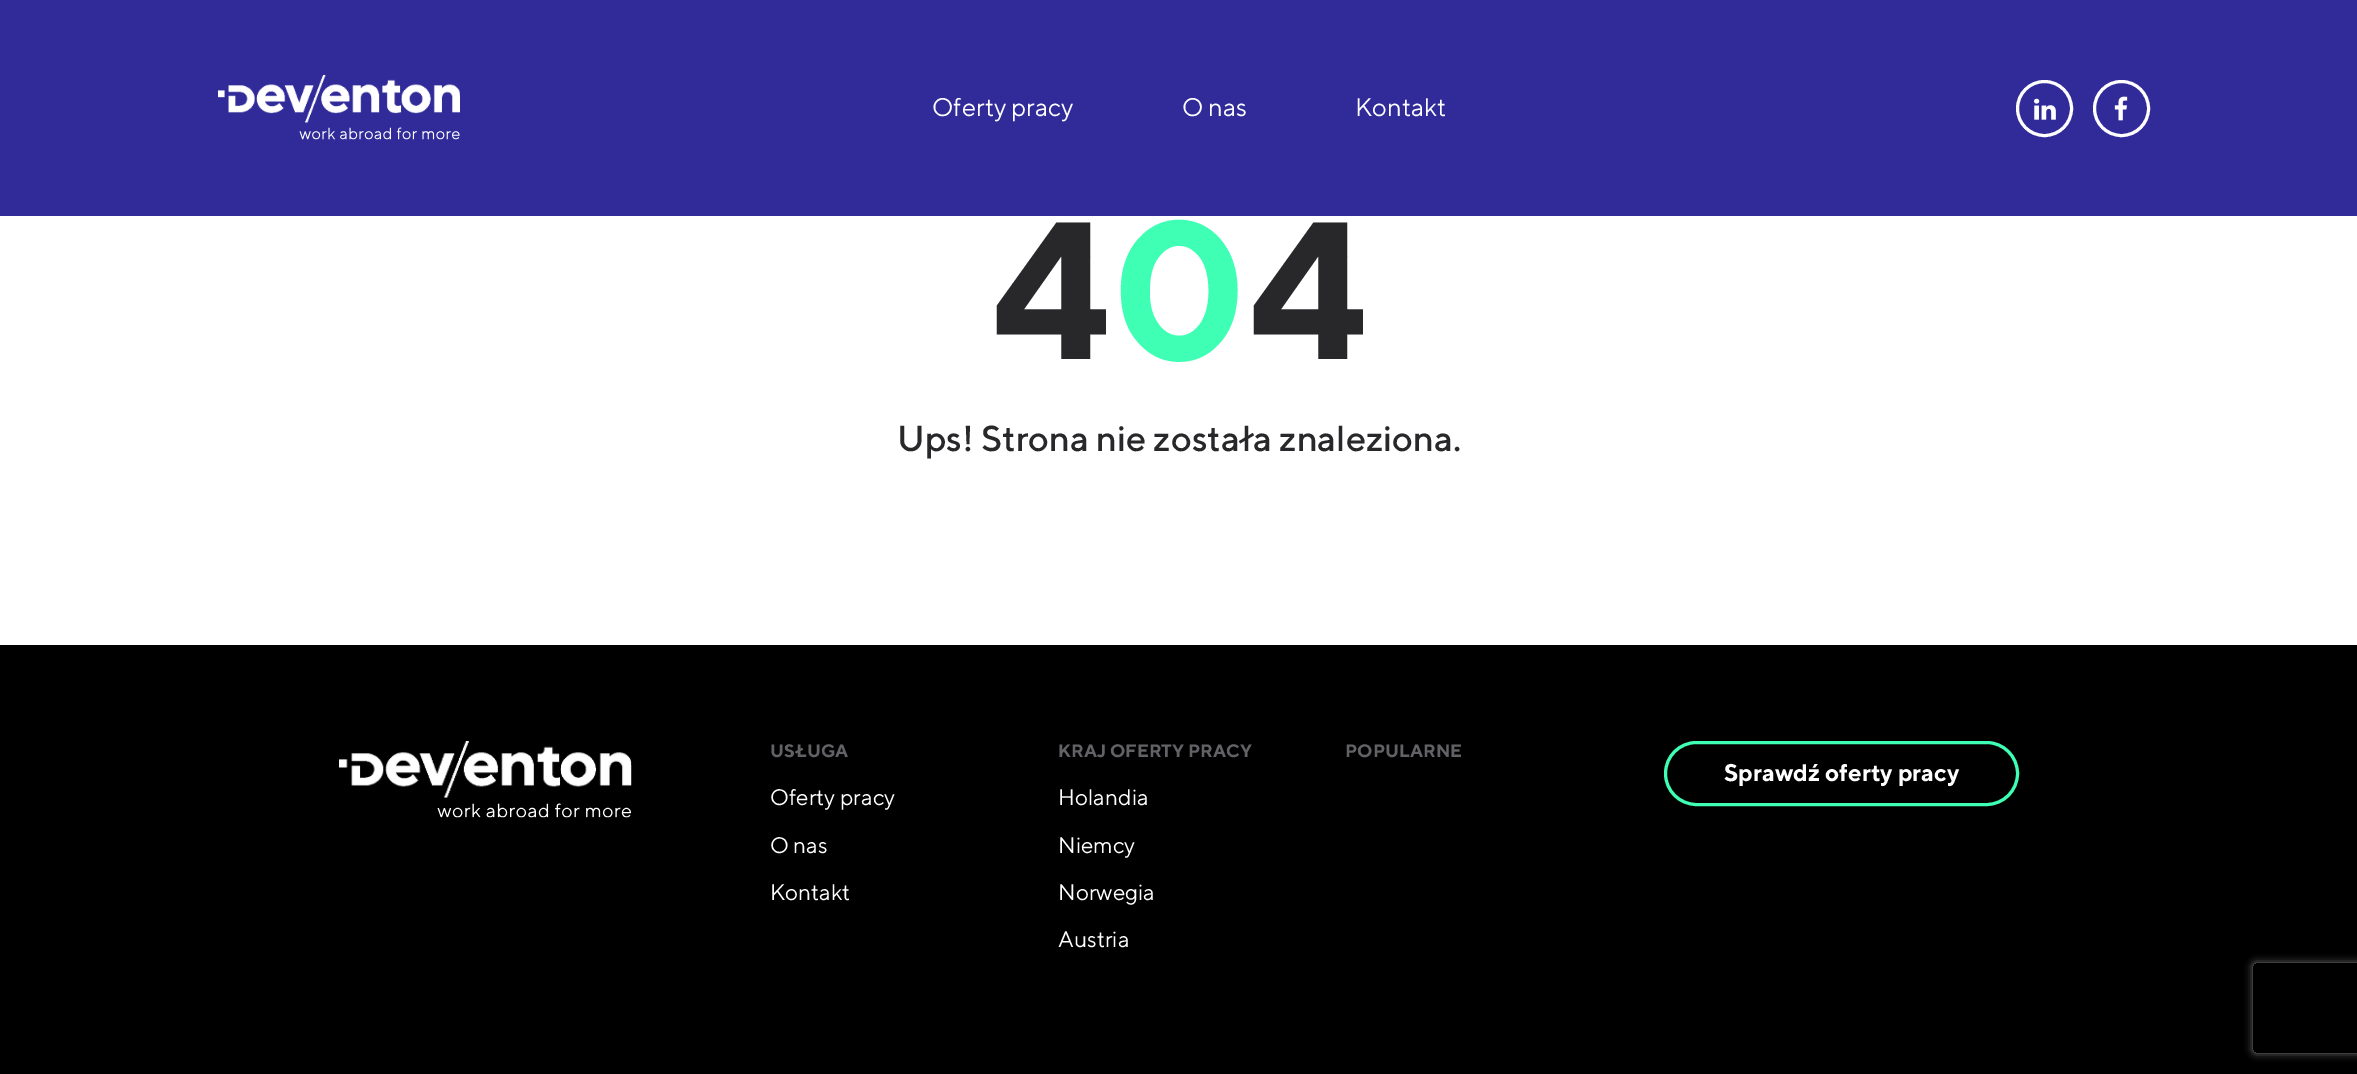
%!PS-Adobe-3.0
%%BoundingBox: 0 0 2357 1074
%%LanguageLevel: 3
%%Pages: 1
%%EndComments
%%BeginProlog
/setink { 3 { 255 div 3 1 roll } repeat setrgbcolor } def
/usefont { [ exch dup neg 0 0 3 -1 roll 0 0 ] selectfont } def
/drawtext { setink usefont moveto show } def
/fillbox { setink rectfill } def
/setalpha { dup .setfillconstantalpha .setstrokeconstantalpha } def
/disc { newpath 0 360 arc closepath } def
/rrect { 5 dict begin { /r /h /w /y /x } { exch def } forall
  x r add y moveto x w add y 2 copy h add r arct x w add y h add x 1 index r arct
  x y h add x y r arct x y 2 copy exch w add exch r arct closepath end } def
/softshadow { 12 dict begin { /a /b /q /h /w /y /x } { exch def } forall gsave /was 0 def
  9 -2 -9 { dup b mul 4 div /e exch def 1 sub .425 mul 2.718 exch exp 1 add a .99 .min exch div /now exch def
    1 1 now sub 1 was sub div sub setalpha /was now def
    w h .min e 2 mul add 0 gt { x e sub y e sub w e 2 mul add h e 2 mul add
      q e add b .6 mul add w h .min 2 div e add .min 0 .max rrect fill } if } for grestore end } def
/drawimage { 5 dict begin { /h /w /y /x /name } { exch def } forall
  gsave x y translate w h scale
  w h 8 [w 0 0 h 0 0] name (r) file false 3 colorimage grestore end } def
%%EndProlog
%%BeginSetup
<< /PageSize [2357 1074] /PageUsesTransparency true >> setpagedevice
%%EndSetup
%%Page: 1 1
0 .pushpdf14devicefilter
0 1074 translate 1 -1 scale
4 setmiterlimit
0 0 2357 1074 255 255 255 fillbox
0 0 2357 216 48 43 153 fillbox
(assets/img1.rgb) 218 75 242 65 drawimage
(Oferty pracy) 932 116 /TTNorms-Regular 25.5 255 255 255 drawtext
(O nas) 1182 116 /TTNorms-Regular 25.5 255 255 255 drawtext
(Kontakt) 1355 116 /TTNorms-Regular 25.5 255 255 255 drawtext
3 setlinewidth
2044.5 108.5 27 disc stroke
(assets/img2.rgb) 2034 98 22 22 drawimage
2121.5 108.5 27 disc stroke
(assets/img3.rgb) 2114 96 14 25 drawimage
(4) 991 359 /TTNorms-Bold 195 40 40 43 drawtext
(0) 1110 359 /TTNorms-Bold 195 63 255 180 drawtext
(4) 1248 359 /TTNorms-Bold 195 40 40 43 drawtext
(Ups! Strona nie została znaleziona.) 897 451 /TTNorms-Medium 36 40 40 43 drawtext
0 645 2357 429 0 0 0 fillbox
(assets/img4.rgb) 339 741 293 77 drawimage
(USŁUGA) 770 757 /TTNorms-Bold 18 98 98 102 drawtext
(Oferty pracy) 770 805 /TTNorms-Regular 22.5 255 255 255 drawtext
(O nas) 770 853 /TTNorms-Regular 22.5 255 255 255 drawtext
(Kontakt) 770 900 /TTNorms-Regular 22.5 255 255 255 drawtext
(KRAJ OFERTY PRACY) 1058 757 /TTNorms-Bold 18 98 98 102 drawtext
(Holandia) 1058 805 /TTNorms-Regular 22.5 255 255 255 drawtext
(Niemcy) 1058 853 /TTNorms-Regular 22.5 255 255 255 drawtext
(Norwegia) 1058 900 /TTNorms-Regular 22.5 255 255 255 drawtext
(Austria) 1058 947 /TTNorms-Regular 22.5 255 255 255 drawtext
(POPULARNE) 1345 757 /TTNorms-Bold 18 98 98 102 drawtext
63 255 180 setink
1665.5 742.5 352 62 31 rrect stroke
(Sprawdź oferty pracy) 1724 781 /TTNorms-Bold 24 255 255 255 drawtext
gsave
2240 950 moveto 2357 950 lineto 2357 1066 lineto 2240 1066 lineto closepath 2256 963 moveto 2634 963 lineto 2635.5 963 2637 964.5 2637 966 curveto 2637 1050 lineto 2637 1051.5 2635.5 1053 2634 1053 curveto 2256 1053 lineto 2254.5 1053 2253 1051.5 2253 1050 curveto 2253 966 lineto 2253 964.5 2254.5 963 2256 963 curveto closepath eoclip newpath
128 128 128 setink
2253 963 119 90 3 4 1 softshadow
grestore
.poppdf14devicefilter showpage
%%EOF
